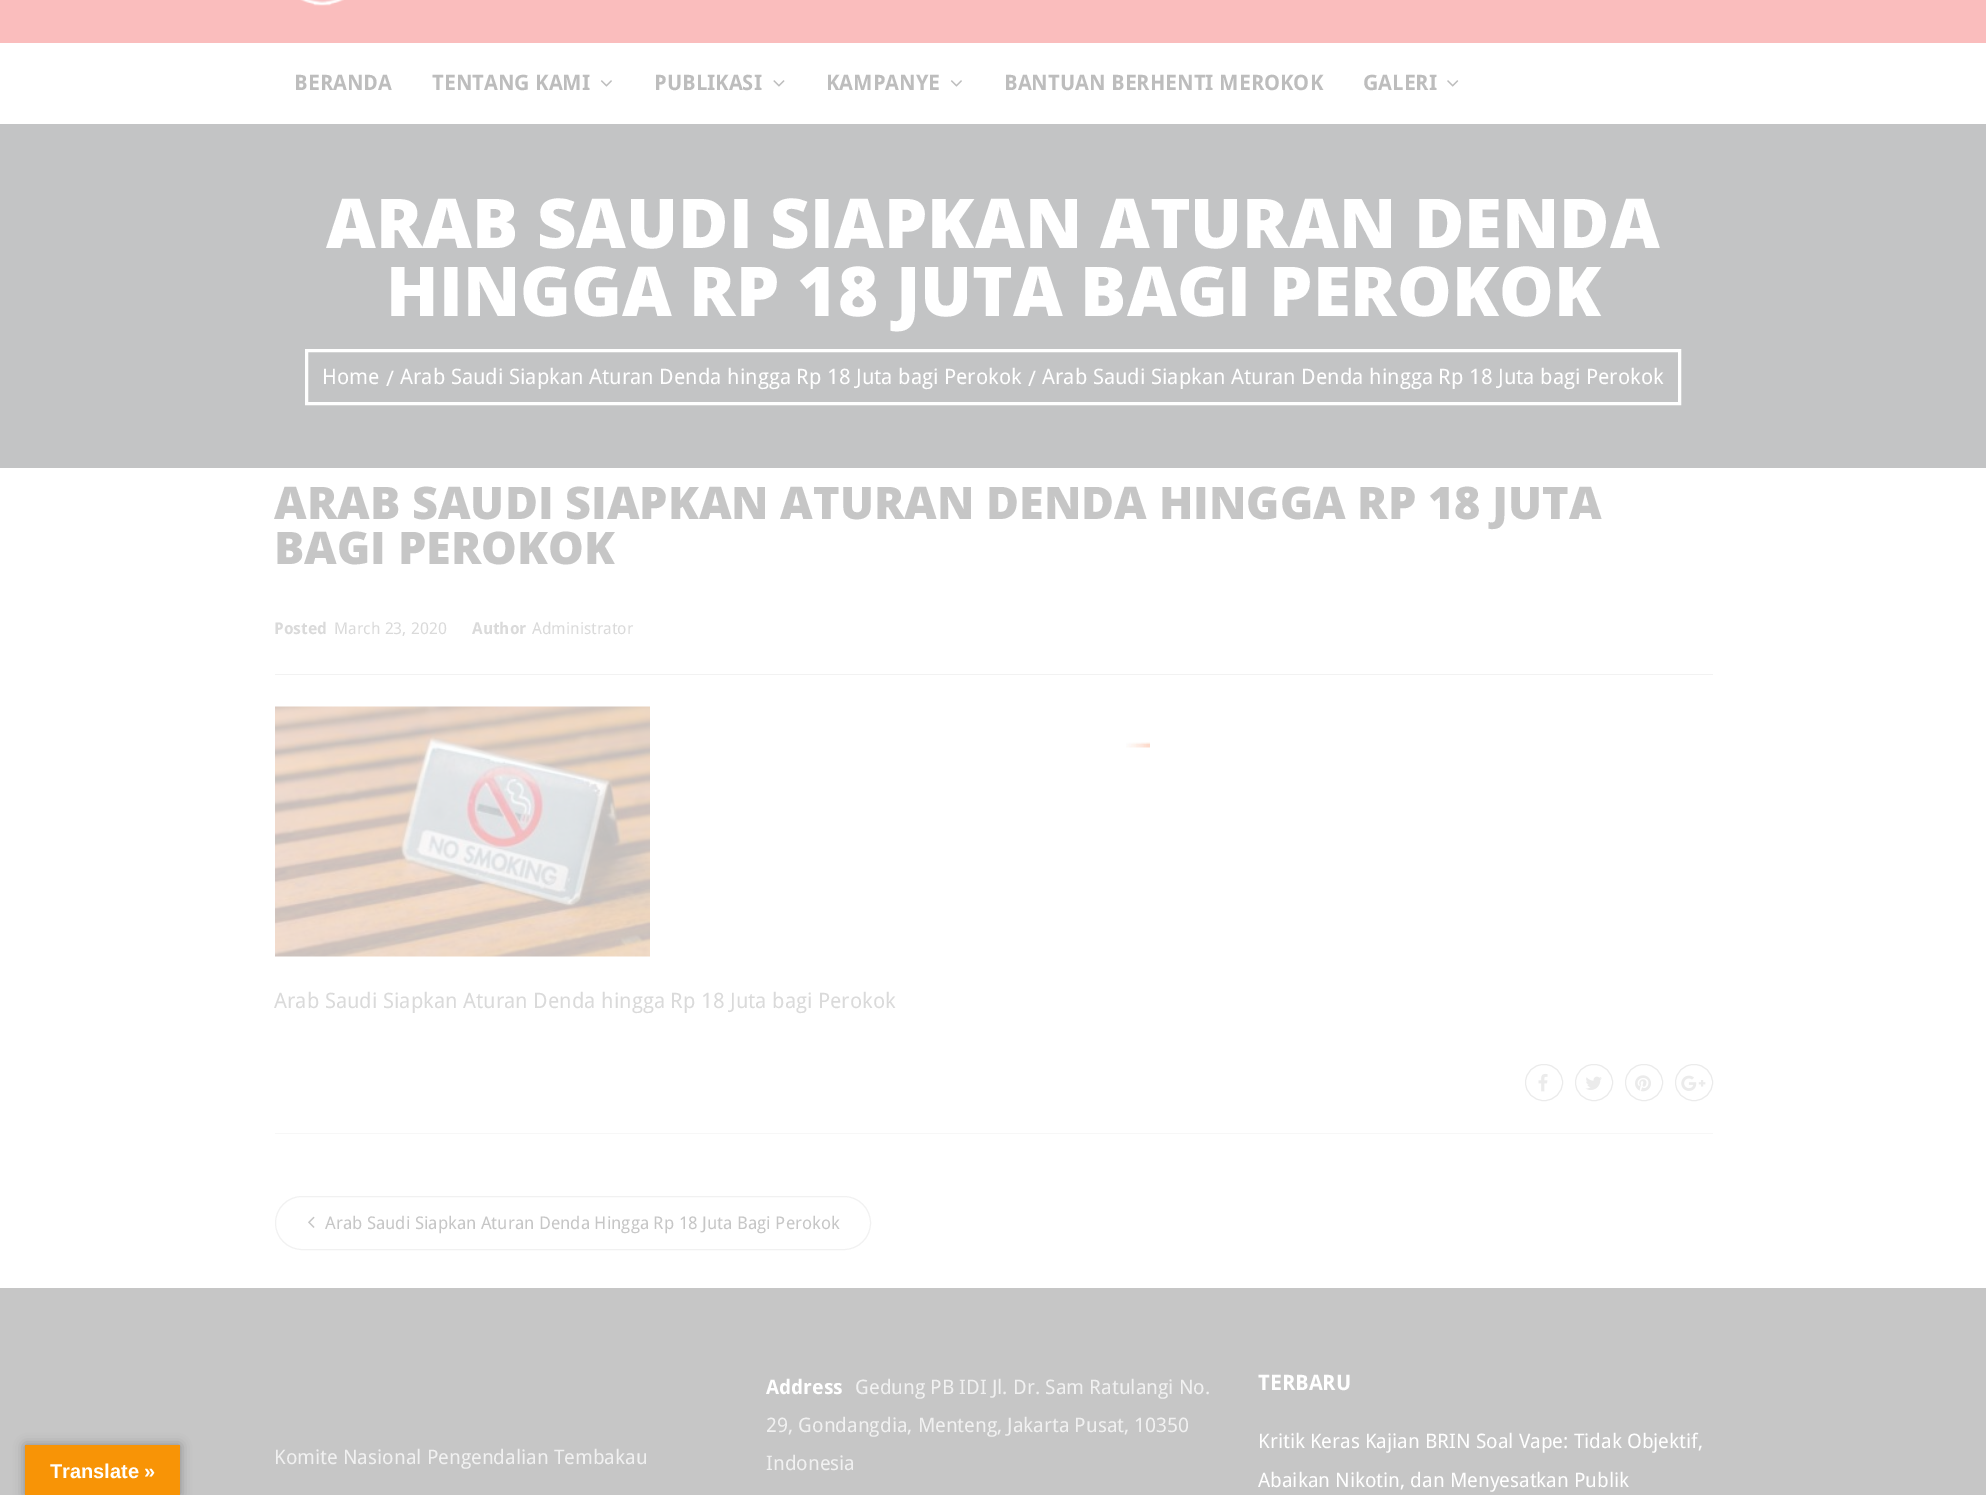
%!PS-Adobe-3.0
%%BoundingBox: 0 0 1986 1495
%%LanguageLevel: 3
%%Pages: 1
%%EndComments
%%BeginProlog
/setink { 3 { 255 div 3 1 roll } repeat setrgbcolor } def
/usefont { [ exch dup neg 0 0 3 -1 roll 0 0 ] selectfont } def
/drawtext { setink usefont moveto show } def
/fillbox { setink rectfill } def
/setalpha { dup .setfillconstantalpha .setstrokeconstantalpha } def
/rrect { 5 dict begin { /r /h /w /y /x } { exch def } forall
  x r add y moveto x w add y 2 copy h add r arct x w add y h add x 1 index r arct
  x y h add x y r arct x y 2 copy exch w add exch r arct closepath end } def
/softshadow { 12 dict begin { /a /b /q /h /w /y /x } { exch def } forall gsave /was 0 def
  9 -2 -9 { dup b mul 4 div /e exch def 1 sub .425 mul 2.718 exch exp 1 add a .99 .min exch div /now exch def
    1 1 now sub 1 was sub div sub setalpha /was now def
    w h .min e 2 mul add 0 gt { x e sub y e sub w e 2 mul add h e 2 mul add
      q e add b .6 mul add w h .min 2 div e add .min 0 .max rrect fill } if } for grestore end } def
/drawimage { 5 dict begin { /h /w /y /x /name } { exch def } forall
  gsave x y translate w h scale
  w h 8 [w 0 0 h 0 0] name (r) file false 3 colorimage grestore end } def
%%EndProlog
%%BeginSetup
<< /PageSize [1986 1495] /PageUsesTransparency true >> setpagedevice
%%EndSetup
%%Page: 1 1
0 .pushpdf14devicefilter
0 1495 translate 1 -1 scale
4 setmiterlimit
0 0 1986 1495 255 255 255 fillbox
0 0 1986 43 250 189 189 fillbox
(assets/img1.rgb) 300 0 44 6 drawimage
(BERANDA) 294 90 /DroidSans-Bold 21.25 189 189 189 drawtext
(TENTANG KAMI) 432 90 /DroidSans-Bold 21.25 189 189 189 drawtext
(assets/img2.rgb) 600 80 12 7 drawimage
(PUBLIKASI) 654 90 /DroidSans-Bold 21.25 189 189 189 drawtext
(assets/img3.rgb) 773 80 12 7 drawimage
(KAMPANYE) 826 90 /DroidSans-Bold 21.25 189 189 189 drawtext
(assets/img2.rgb) 950 80 12 7 drawimage
(BANTUAN BERHENTI MEROKOK) 1004 90 /DroidSans-Bold 21.25 189 189 189 drawtext
(GALERI) 1363 90 /DroidSans-Bold 21.25 189 189 189 drawtext
(assets/img4.rgb) 1447 80 12 7 drawimage
0 124 1986 344 195 196 197 fillbox
(ARAB SAUDI SIAPKAN ATURAN DENDA) 326 248 /OpenSans-ExtraBold 68.75 255 255 255 drawtext
(HINGGA RP 18 JUTA BAGI PEROKOK) 386 316 /OpenSans-ExtraBold 68.75 255 255 255 drawtext
3 setlinewidth
306.5 350.5 1373 53 rectstroke
(Home) 322 384 /DroidSans-Regular 21.25 255 255 255 drawtext
(/) 386 386 /DroidSans-Regular 21.25 255 255 255 drawtext
(Arab Saudi Siapkan Aturan Denda hingga Rp 18 Juta bagi Perokok) 400 384 /DroidSans-Regular 21.25 255 255 255 drawtext
(/) 1028 386 /DroidSans-Regular 21.25 255 255 255 drawtext
(Arab Saudi Siapkan Aturan Denda hingga Rp 18 Juta bagi Perokok) 1042 384 /DroidSans-Regular 21.25 255 255 255 drawtext
(ARAB SAUDI SIAPKAN ATURAN DENDA HINGGA RP 18 JUTA) 274 519 /OpenSans-ExtraBold 45 198 198 198 drawtext
(BAGI PEROKOK) 274 564 /OpenSans-ExtraBold 45 198 198 198 drawtext
275 674 1438 1 242 242 242 fillbox
(Posted) 274 634 /DroidSans-Bold 16.25 218 218 218 drawtext
(March 23, 2020) 334 634 /DroidSans-Regular 16.25 218 218 218 drawtext
(Author) 472 634 /DroidSans-Bold 16.25 218 218 218 drawtext
(Administrator) 532 634 /DroidSans-Regular 16.25 218 218 218 drawtext
(assets/img5.rgb) 275 706 375 251 drawimage
(Arab Saudi Siapkan Aturan Denda hingga Rp 18 Juta bagi Perokok) 274 1008 /DroidSans-Regular 21.25 218 218 218 drawtext
275 1133 1438 1 247 247 247 fillbox
235 235 235 setink
1 setlinewidth
1525.5 1064.5 37 36 18 rrect stroke
(assets/img6.rgb) 1538 1073 10 19 drawimage
1575.5 1064.5 37 36 18 rrect stroke
(assets/img7.rgb) 1585 1076 17 14 drawimage
1625.5 1064.5 37 36 18 rrect stroke
(assets/img8.rgb) 1635 1075 16 17 drawimage
1675.5 1064.5 37 36 18 rrect stroke
(assets/img9.rgb) 1681 1075 25 16 drawimage
241 241 241 setink
275.5 1196.5 595 53 26.5 rrect stroke
(assets/img10.rgb) 308 1216 7 12 drawimage
(Arab Saudi Siapkan Aturan Denda Hingga Rp 18 Juta Bagi Perokok) 325 1229 /DroidSans-Regular 17.5 198 198 198 drawtext
0 1288 1986 207 198 198 198 fillbox
(Komite Nasional Pengendalian Tembakau) 274 1464 /DroidSans-Regular 20 241 241 241 drawtext
(Address) 766 1394 /DroidSans-Bold 20 255 255 255 drawtext
(Gedung PB IDI Jl. Dr. Sam Ratulangi No.) 855 1394 /DroidSans-Regular 20 241 241 241 drawtext
(29, Gondangdia, Menteng, Jakarta Pusat, 10350) 766 1432 /DroidSans-Regular 20 241 241 241 drawtext
(Indonesia) 766 1470 /DroidSans-Regular 20 241 241 241 drawtext
(TERBARU) 1258 1390 /DroidSans-Bold 21.25 255 255 255 drawtext
(Kritik Keras Kajian BRIN Soal Vape: Tidak Objektif,) 1258 1448 /DroidSans-Regular 20 255 255 255 drawtext
(Abaikan Nikotin, dan Menyesatkan Publik) 1258 1487 /DroidSans-Regular 20 255 255 255 drawtext
(assets/img11.rgb) 1126 742 24 6 drawimage
0 0 0 setink
25 1445 155 50 0 5.5 0.3 softshadow
25 1445 155 50 248 148 6 fillbox
(Translate ») 50 1478 /LiberationSans-Bold 20 255 255 255 drawtext
.poppdf14devicefilter showpage
%%EOF
